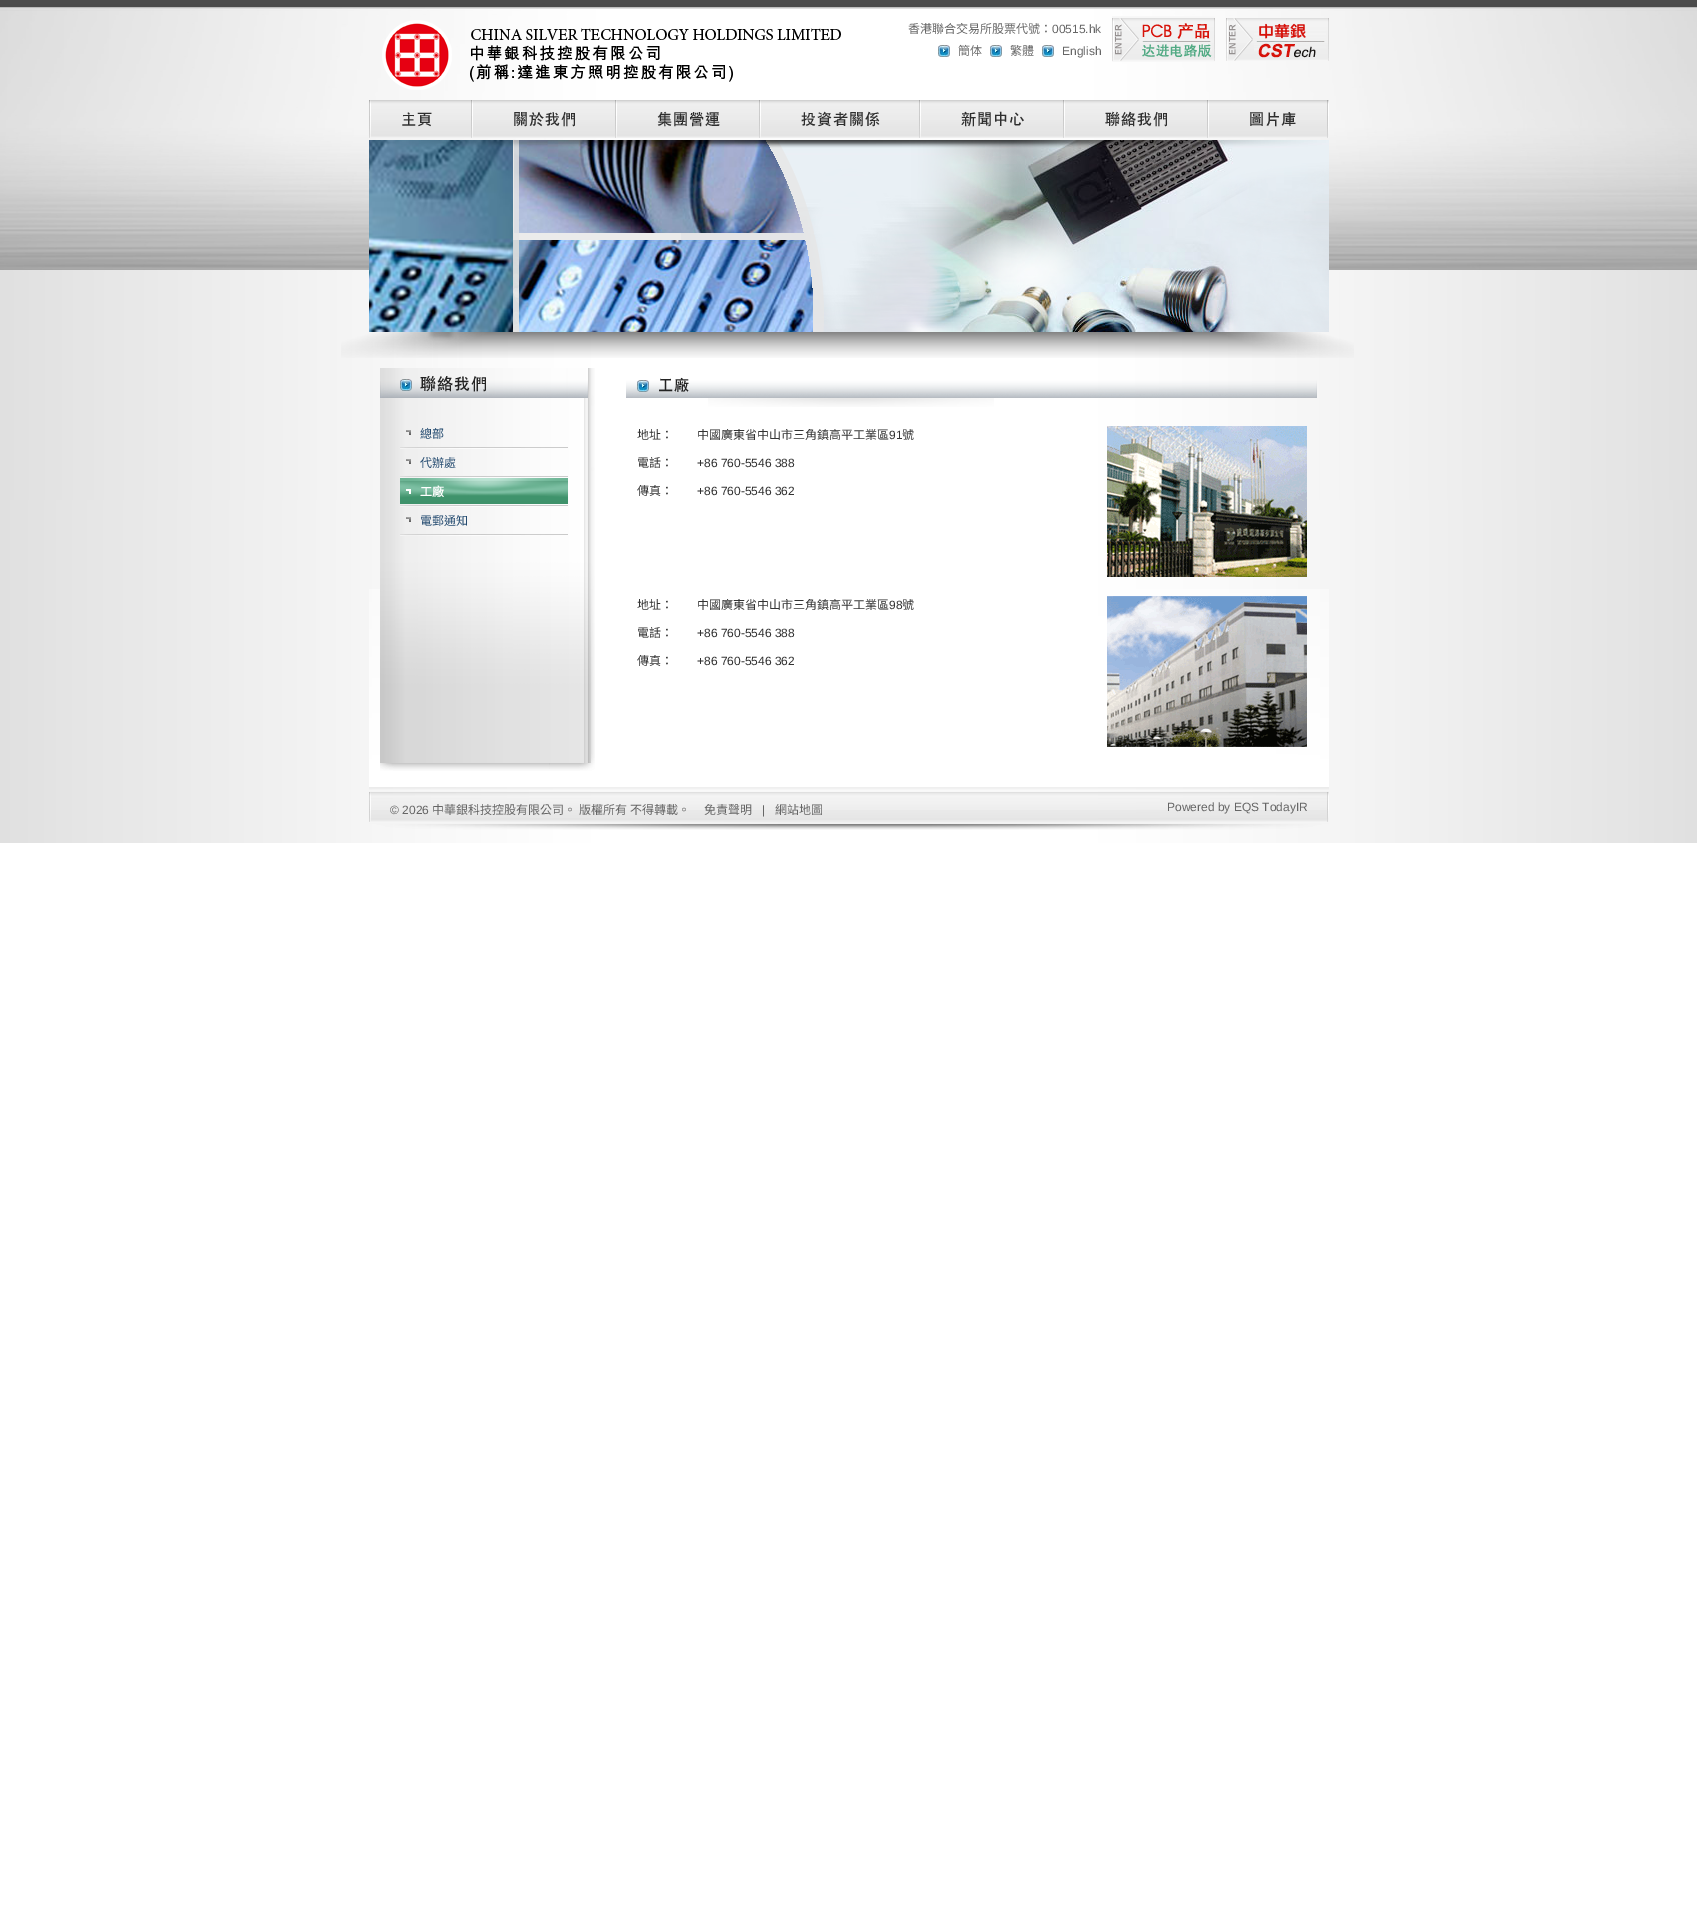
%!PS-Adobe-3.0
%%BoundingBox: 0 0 1697 1914
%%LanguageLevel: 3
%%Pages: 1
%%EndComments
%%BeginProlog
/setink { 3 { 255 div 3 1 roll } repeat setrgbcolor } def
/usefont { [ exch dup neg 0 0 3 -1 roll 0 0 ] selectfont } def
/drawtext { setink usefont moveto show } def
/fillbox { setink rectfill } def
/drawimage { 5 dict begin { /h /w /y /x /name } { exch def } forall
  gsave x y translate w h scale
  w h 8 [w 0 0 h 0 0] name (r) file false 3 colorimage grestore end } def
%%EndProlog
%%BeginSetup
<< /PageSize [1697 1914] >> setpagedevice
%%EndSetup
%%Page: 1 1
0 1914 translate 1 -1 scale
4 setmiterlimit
0 0 1697 1914 255 255 255 fillbox
(assets/img1.rgb) 0 0 1697 500 drawimage
(assets/img2.rgb) 382 20 459 70 drawimage
(香港聯合交易所股票代號：) 908 33 /NotoSansCJKTC-Regular 12 102 102 102 drawtext
(00515.hk) 1052 33 /LiberationSans-Regular 12 102 102 102 drawtext
(assets/img3.rgb) 1112 16 103 46 drawimage
(assets/img4.rgb) 1226 18 103 43 drawimage
(assets/img5.rgb) 938 45 12 12 drawimage
(簡体) 958 55 /NotoSansCJKTC-Regular 12 102 102 102 drawtext
(assets/img5.rgb) 990 45 12 12 drawimage
(繁體) 1010 55 /NotoSansCJKTC-Regular 12 102 102 102 drawtext
(assets/img5.rgb) 1042 45 12 12 drawimage
(English) 1062 55 /LiberationSans-Regular 12 102 102 102 drawtext
(assets/img6.rgb) 369 100 2 38 drawimage
(assets/img7.rgb) 371 100 100 38 drawimage
(assets/img6.rgb) 471 100 2 38 drawimage
(assets/img8.rgb) 473 100 142 38 drawimage
(assets/img6.rgb) 615 100 2 38 drawimage
(assets/img9.rgb) 617 100 142 38 drawimage
(assets/img6.rgb) 759 100 2 38 drawimage
(assets/img10.rgb) 761 100 158 38 drawimage
(assets/img6.rgb) 919 100 2 38 drawimage
(assets/img11.rgb) 921 100 142 38 drawimage
(assets/img6.rgb) 1063 100 2 38 drawimage
(assets/img12.rgb) 1065 100 142 38 drawimage
(assets/img6.rgb) 1207 100 2 38 drawimage
(assets/img13.rgb) 1209 100 118 38 drawimage
(assets/img6.rgb) 1327 100 2 38 drawimage
(assets/img14.rgb) 341 140 1013 218 drawimage
(assets/img15.rgb) 0 500 1697 343 drawimage
(assets/img16.rgb) 369 589 960 198 drawimage
(assets/img17.rgb) 380 368 215 379 drawimage
(assets/img18.rgb) 380 368 208 30 drawimage
(assets/img19.rgb) 400 430 168 19 drawimage
(總部) 420 438 /NotoSansCJKTC-Regular 12 36 75 112 drawtext
(assets/img19.rgb) 400 459 168 19 drawimage
(代辦處) 420 467 /NotoSansCJKTC-Regular 12 36 75 112 drawtext
(assets/img20.rgb) 400 478 168 29 drawimage
(工廠) 420 496 /NotoSansCJKTC-Bold 12 255 255 255 drawtext
(assets/img19.rgb) 400 517 168 19 drawimage
(電郵通知) 420 525 /NotoSansCJKTC-Regular 12 36 75 112 drawtext
(assets/img21.rgb) 626 377 691 21 drawimage
(assets/img22.rgb) 708 398 286 9 drawimage
(地址：) 637 439 /NotoSansCJKTC-Regular 12 51 51 51 drawtext
(中國廣東省中山市三角鎮高平工業區) 697 439 /NotoSansCJKTC-Regular 12 51 51 51 drawtext
(91) 889 439 /LiberationSans-Regular 12 51 51 51 drawtext
(號) 902 439 /NotoSansCJKTC-Regular 12 51 51 51 drawtext
(電話：) 637 467 /NotoSansCJKTC-Regular 12 51 51 51 drawtext
(+86 760-5546 388) 697 467 /LiberationSans-Regular 12 51 51 51 drawtext
(傳真：) 637 495 /NotoSansCJKTC-Regular 12 51 51 51 drawtext
(+86 760-5546 362) 697 495 /LiberationSans-Regular 12 51 51 51 drawtext
(assets/img23.rgb) 1107 426 200 151 drawimage
(地址：) 637 609 /NotoSansCJKTC-Regular 12 51 51 51 drawtext
(中國廣東省中山市三角鎮高平工業區) 697 609 /NotoSansCJKTC-Regular 12 51 51 51 drawtext
(98) 889 609 /LiberationSans-Regular 12 51 51 51 drawtext
(號) 902 609 /NotoSansCJKTC-Regular 12 51 51 51 drawtext
(電話：) 637 637 /NotoSansCJKTC-Regular 12 51 51 51 drawtext
(+86 760-5546 388) 697 637 /LiberationSans-Regular 12 51 51 51 drawtext
(傳真：) 637 665 /NotoSansCJKTC-Regular 12 51 51 51 drawtext
(+86 760-5546 362) 697 665 /LiberationSans-Regular 12 51 51 51 drawtext
(assets/img24.rgb) 1107 596 200 151 drawimage
(assets/img25.rgb) 380 747 215 24 drawimage
(assets/img26.rgb) 369 787 960 43 drawimage
(© 2026) 390 814 /LiberationSans-Regular 12 102 102 102 drawtext
(中華銀科技控股有限公司。) 432 814 /NotoSansCJKTC-Regular 12 102 102 102 drawtext
(版權所有) 579 814 /NotoSansCJKTC-Regular 12 102 102 102 drawtext
(不得轉載。) 630 814 /NotoSansCJKTC-Regular 12 102 102 102 drawtext
(免責聲明) 704 814 /NotoSansCJKTC-Regular 12 102 102 102 drawtext
(|) 762 814 /LiberationSans-Regular 12 102 102 102 drawtext
(網站地圖) 775 814 /NotoSansCJKTC-Regular 12 102 102 102 drawtext
(Powered by EQS TodayIR) 1167 811 /LiberationSans-Regular 12 102 102 102 drawtext
showpage
%%EOF
